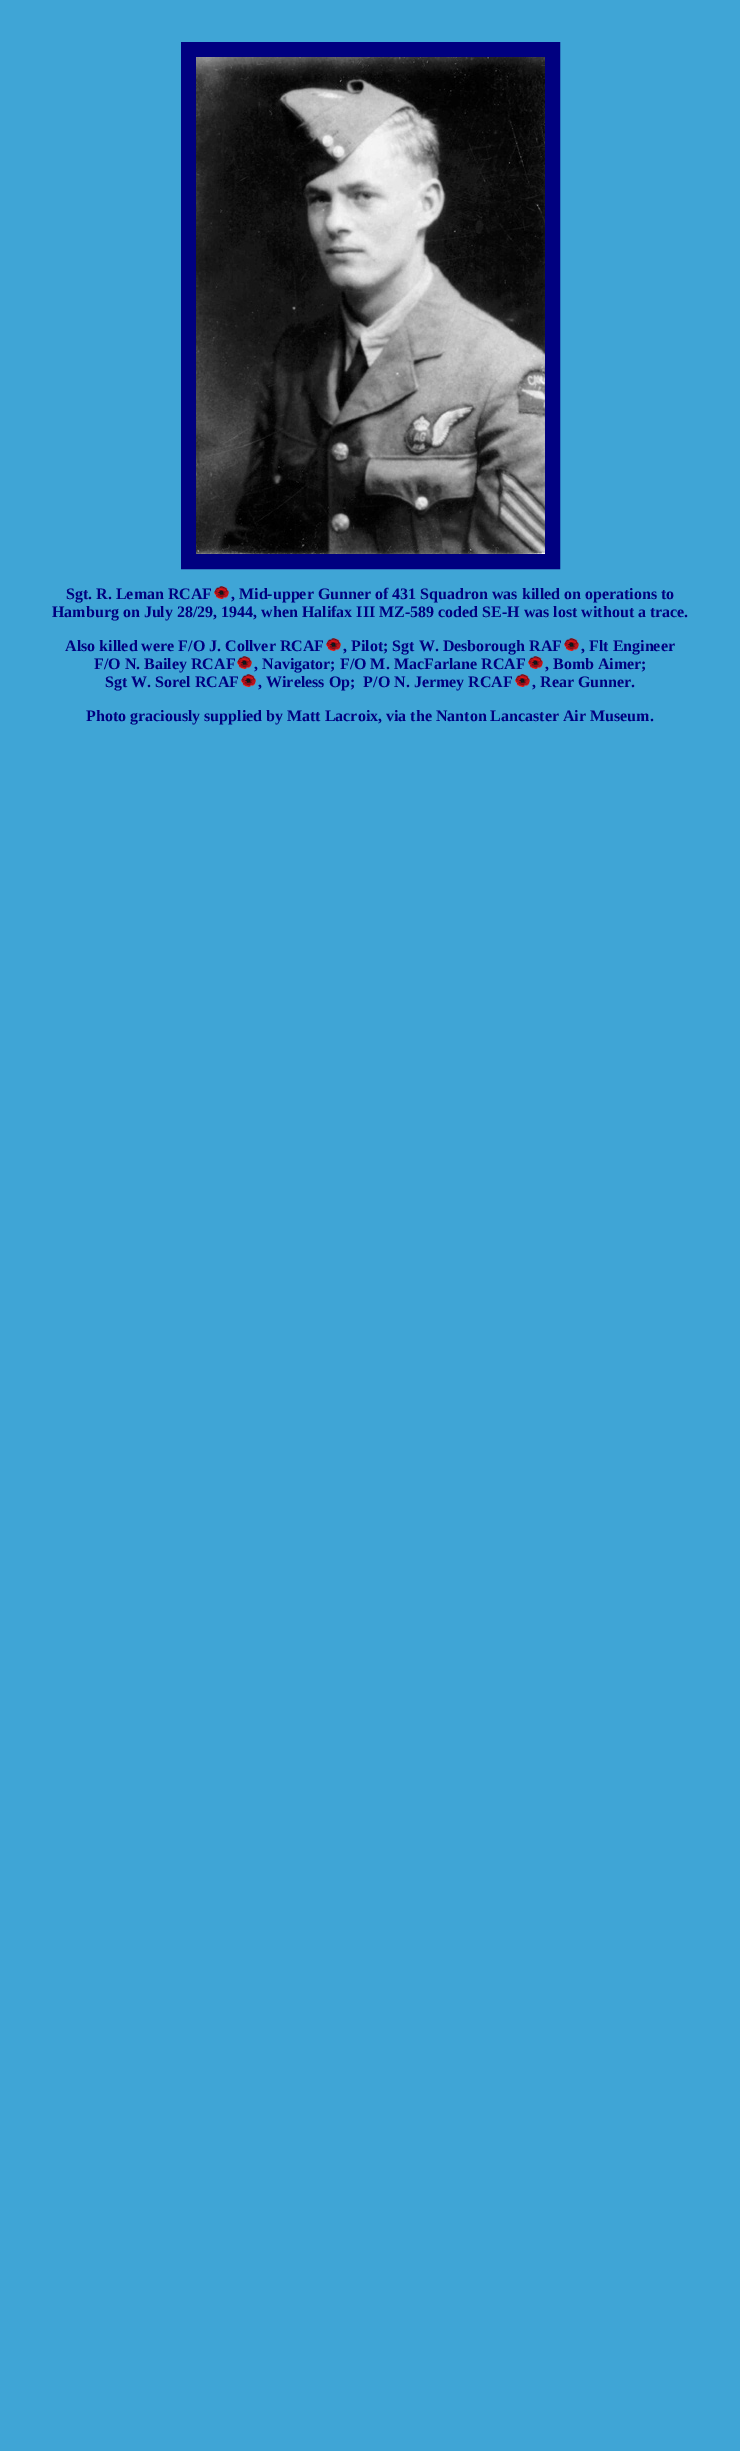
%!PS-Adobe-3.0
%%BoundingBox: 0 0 740 2451
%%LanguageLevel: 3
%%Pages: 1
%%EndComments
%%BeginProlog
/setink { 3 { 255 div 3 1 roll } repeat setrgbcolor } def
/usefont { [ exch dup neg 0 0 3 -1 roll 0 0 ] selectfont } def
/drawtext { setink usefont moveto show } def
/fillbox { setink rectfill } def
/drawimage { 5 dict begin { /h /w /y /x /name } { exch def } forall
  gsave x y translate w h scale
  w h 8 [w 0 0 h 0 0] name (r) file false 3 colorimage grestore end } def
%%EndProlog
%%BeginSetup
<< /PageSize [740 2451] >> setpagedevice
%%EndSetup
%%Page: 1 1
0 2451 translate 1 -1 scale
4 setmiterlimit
0 0 740 2451 63 165 214 fillbox
0 0 128 setink
15 setlinewidth
188.5 49.5 364 512 rectstroke
(assets/img1.rgb) 196 57 349 497 drawimage
(Sgt. R. Leman RCAF) 66 599 /LiberationSerif-Bold 16 0 0 128 drawtext
(assets/img2.rgb) 214 586 15 13 drawimage
(, Mid-upper Gunner of 431 Squadron was killed on operations to) 231 599 /LiberationSerif-Bold 16 0 0 128 drawtext
(Hamburg on July 28/29, 1944, when Halifax III MZ-589 coded SE-H was lost without a trace.) 52 617 /LiberationSerif-Bold 16 0 0 128 drawtext
(Also killed were F/O J. Collver RCAF) 65 651 /LiberationSerif-Bold 16 0 0 128 drawtext
(assets/img3.rgb) 326 638 15 13 drawimage
(, Pilot; Sgt W. Desborough RAF) 343 651 /LiberationSerif-Bold 16 0 0 128 drawtext
(assets/img3.rgb) 564 638 15 13 drawimage
(, Flt Engineer) 581 651 /LiberationSerif-Bold 16 0 0 128 drawtext
(F/O N. Bailey RCAF) 94 669 /LiberationSerif-Bold 16 0 0 128 drawtext
(assets/img3.rgb) 237 656 15 13 drawimage
(, Navigator; F/O M. MacFarlane RCAF) 254 669 /LiberationSerif-Bold 16 0 0 128 drawtext
(assets/img2.rgb) 528 656 15 13 drawimage
(, Bomb Aimer;) 545 669 /LiberationSerif-Bold 16 0 0 128 drawtext
(Sgt W. Sorel RCAF) 105 687 /LiberationSerif-Bold 16 0 0 128 drawtext
(assets/img3.rgb) 241 674 15 13 drawimage
(, Wireless Op;  P/O N. Jermey RCAF) 258 687 /LiberationSerif-Bold 16 0 0 128 drawtext
(assets/img3.rgb) 515 674 15 13 drawimage
(, Rear Gunner.) 532 687 /LiberationSerif-Bold 16 0 0 128 drawtext
(Photo graciously supplied by Matt Lacroix, via the Nanton Lancaster Air Museum.) 86 721 /LiberationSerif-Bold 16 0 0 128 drawtext
showpage
%%EOF
